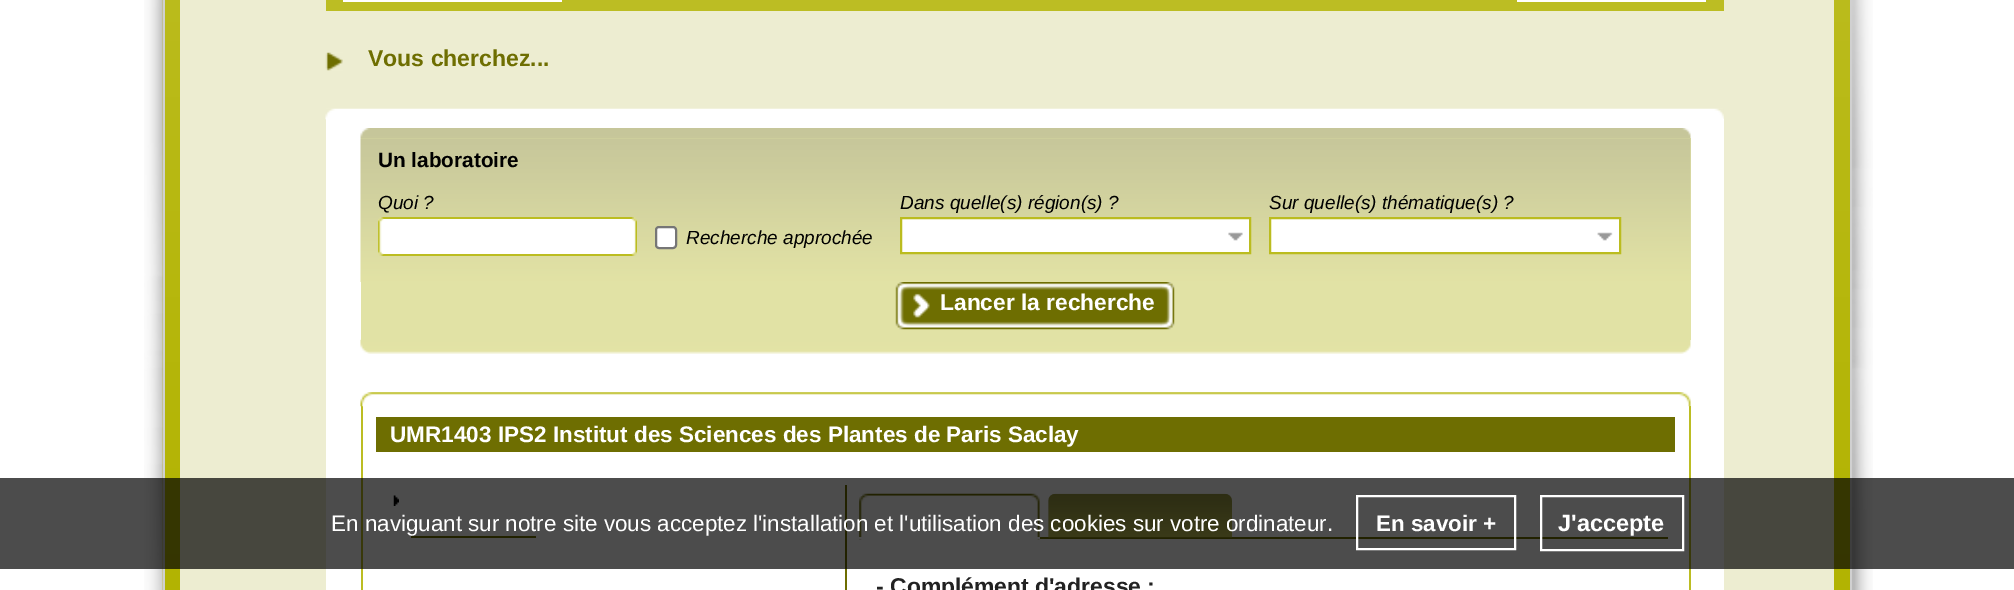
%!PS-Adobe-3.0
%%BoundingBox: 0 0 2014 590
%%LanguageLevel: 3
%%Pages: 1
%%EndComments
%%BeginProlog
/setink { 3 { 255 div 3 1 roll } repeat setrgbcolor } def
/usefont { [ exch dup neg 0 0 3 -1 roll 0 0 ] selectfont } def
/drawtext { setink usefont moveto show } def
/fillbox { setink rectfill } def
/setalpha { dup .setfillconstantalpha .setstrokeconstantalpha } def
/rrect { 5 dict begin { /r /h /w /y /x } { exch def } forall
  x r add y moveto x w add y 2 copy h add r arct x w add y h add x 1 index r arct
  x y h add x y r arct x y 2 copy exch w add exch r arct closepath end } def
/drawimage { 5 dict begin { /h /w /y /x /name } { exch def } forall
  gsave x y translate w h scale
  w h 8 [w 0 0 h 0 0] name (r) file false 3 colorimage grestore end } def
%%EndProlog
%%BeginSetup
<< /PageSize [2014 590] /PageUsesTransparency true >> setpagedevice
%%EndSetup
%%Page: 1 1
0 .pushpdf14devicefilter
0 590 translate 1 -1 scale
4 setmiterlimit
0 0 2014 590 255 255 255 fillbox
(assets/img1.rgb) 144 0 1729 590 drawimage
(assets/img2.rgb) 162 0 1688 590 drawimage
1850 0 2 590 208 208 208 fillbox
163 0 2 590 208 208 208 fillbox
180 0 1654 590 237 237 209 fillbox
326 0 1398 11 188 189 35 fillbox
343 0 219 2 255 255 255 fillbox
1517 0 189 2 255 255 255 fillbox
(assets/img3.rgb) 325 52 18 19 drawimage
(Vous cherchez...) 368 66 /LiberationSans-Bold 23 110 110 1 drawtext
326 119 1398 471 255 255 255 fillbox
(assets/img4.rgb) 325 108 1399 12 drawimage
(assets/img14.rgb) 360 339 1331 15 drawimage
361 138 1330 202 225 226 165 fillbox
(assets/img6.rgb) 360 138 1331 144 drawimage
(assets/img5.rgb) 360 128 1331 11 drawimage
(Un laboratoire) 378 167 /LiberationSans-Bold 20.75 0 0 0 drawtext
(Quoi ?) 378 209 /LiberationSans-Italic 19 0 0 0 drawtext
383 219 249 35 255 255 255 fillbox
383 217 249 2 188 189 33 fillbox
383 254 249 2 188 189 33 fillbox
(assets/img7.rgb) 378 217 6 39 drawimage
(assets/img8.rgb) 631 217 6 39 drawimage
(Dans quelle\(s\) région\(s\) ?) 900 209 /LiberationSans-Italic 19 0 0 0 drawtext
902 219 347 33 255 255 255 fillbox
(assets/img9.rgb) 1228 232 15 9 drawimage
187 188 31 setink
2 setlinewidth
901 218 349 35 rectstroke
(Sur quelle\(s\) thématique\(s\) ?) 1269 209 /LiberationSans-Italic 19 0 0 0 drawtext
1271 219 348 33 255 255 255 fillbox
(assets/img10.rgb) 1597 232 16 9 drawimage
187 188 31 setink
1270 218 350 35 rectstroke
255 255 255 setink
656 227 20 21 3 rrect gsave fill grestore
118 118 118 setink
stroke
(Recherche approchée) 686 244 /LiberationSans-Italic 19 0 0 0 drawtext
(assets/img11.rgb) 895 282 36 48 drawimage
(assets/img12.rgb) 931 282 231 48 drawimage
(Lancer la recherche) 940 310 /LiberationSans-Bold 22.75 255 255 255 drawtext
(assets/img13.rgb) 1162 282 13 48 drawimage
1689 406 2 184 188 189 35 fillbox
361 406 2 184 188 189 35 fillbox
(assets/img15.rgb) 360 392 1331 15 drawimage
376 417 1299 35 110 110 1 fillbox
(UMR1403 IPS2 Institut des Sciences des Plantes de Paris Saclay) 390 442 /LiberationSans-Bold 22.5 255 255 255 drawtext
(assets/img16.rgb) 393 495 6 11 drawimage
411 536 125 2 110 110 1 fillbox
845 485 2 105 110 110 1 fillbox
(assets/img17.rgb) 859 493 181 47 drawimage
859 537 181 2 255 255 255 fillbox
1038 495 4 1 255 255 255 fillbox
858 495 4 1 255 255 255 fillbox
858 496 2 1 255 255 255 fillbox
230 230 230 setink
1055 494 moveto 1225 494 lineto 1229 494 1232 497 1232 501 curveto 1232 537 lineto 1048 537 lineto 1048 501 lineto 1048 497 1051 494 1055 494 curveto closepath fill
1040 537 628 2 110 110 1 fillbox
(assets/img18.rgb) 1048 493 184 45 drawimage
(- Complément d'adresse :) 876 594 /LiberationSans-Bold 22.9 34 34 34 drawtext
0.7 setalpha
0 478 2014 91 0 0 0 fillbox
1 setalpha
(En naviguant sur notre site vous acceptez l'installation et l'utilisation des cookies sur votre ordinateur.) 331 531 /LiberationSans-Regular 22.4 255 255 255 drawtext
1357 496 158 53 rectstroke
(En savoir +) 1376 531 /LiberationSans-Bold 22.4 255 255 255 drawtext
1541 496 142 54 rectstroke
(J'accepte) 1558 531 /LiberationSans-Bold 23.5 255 255 255 drawtext
.poppdf14devicefilter showpage
%%EOF
